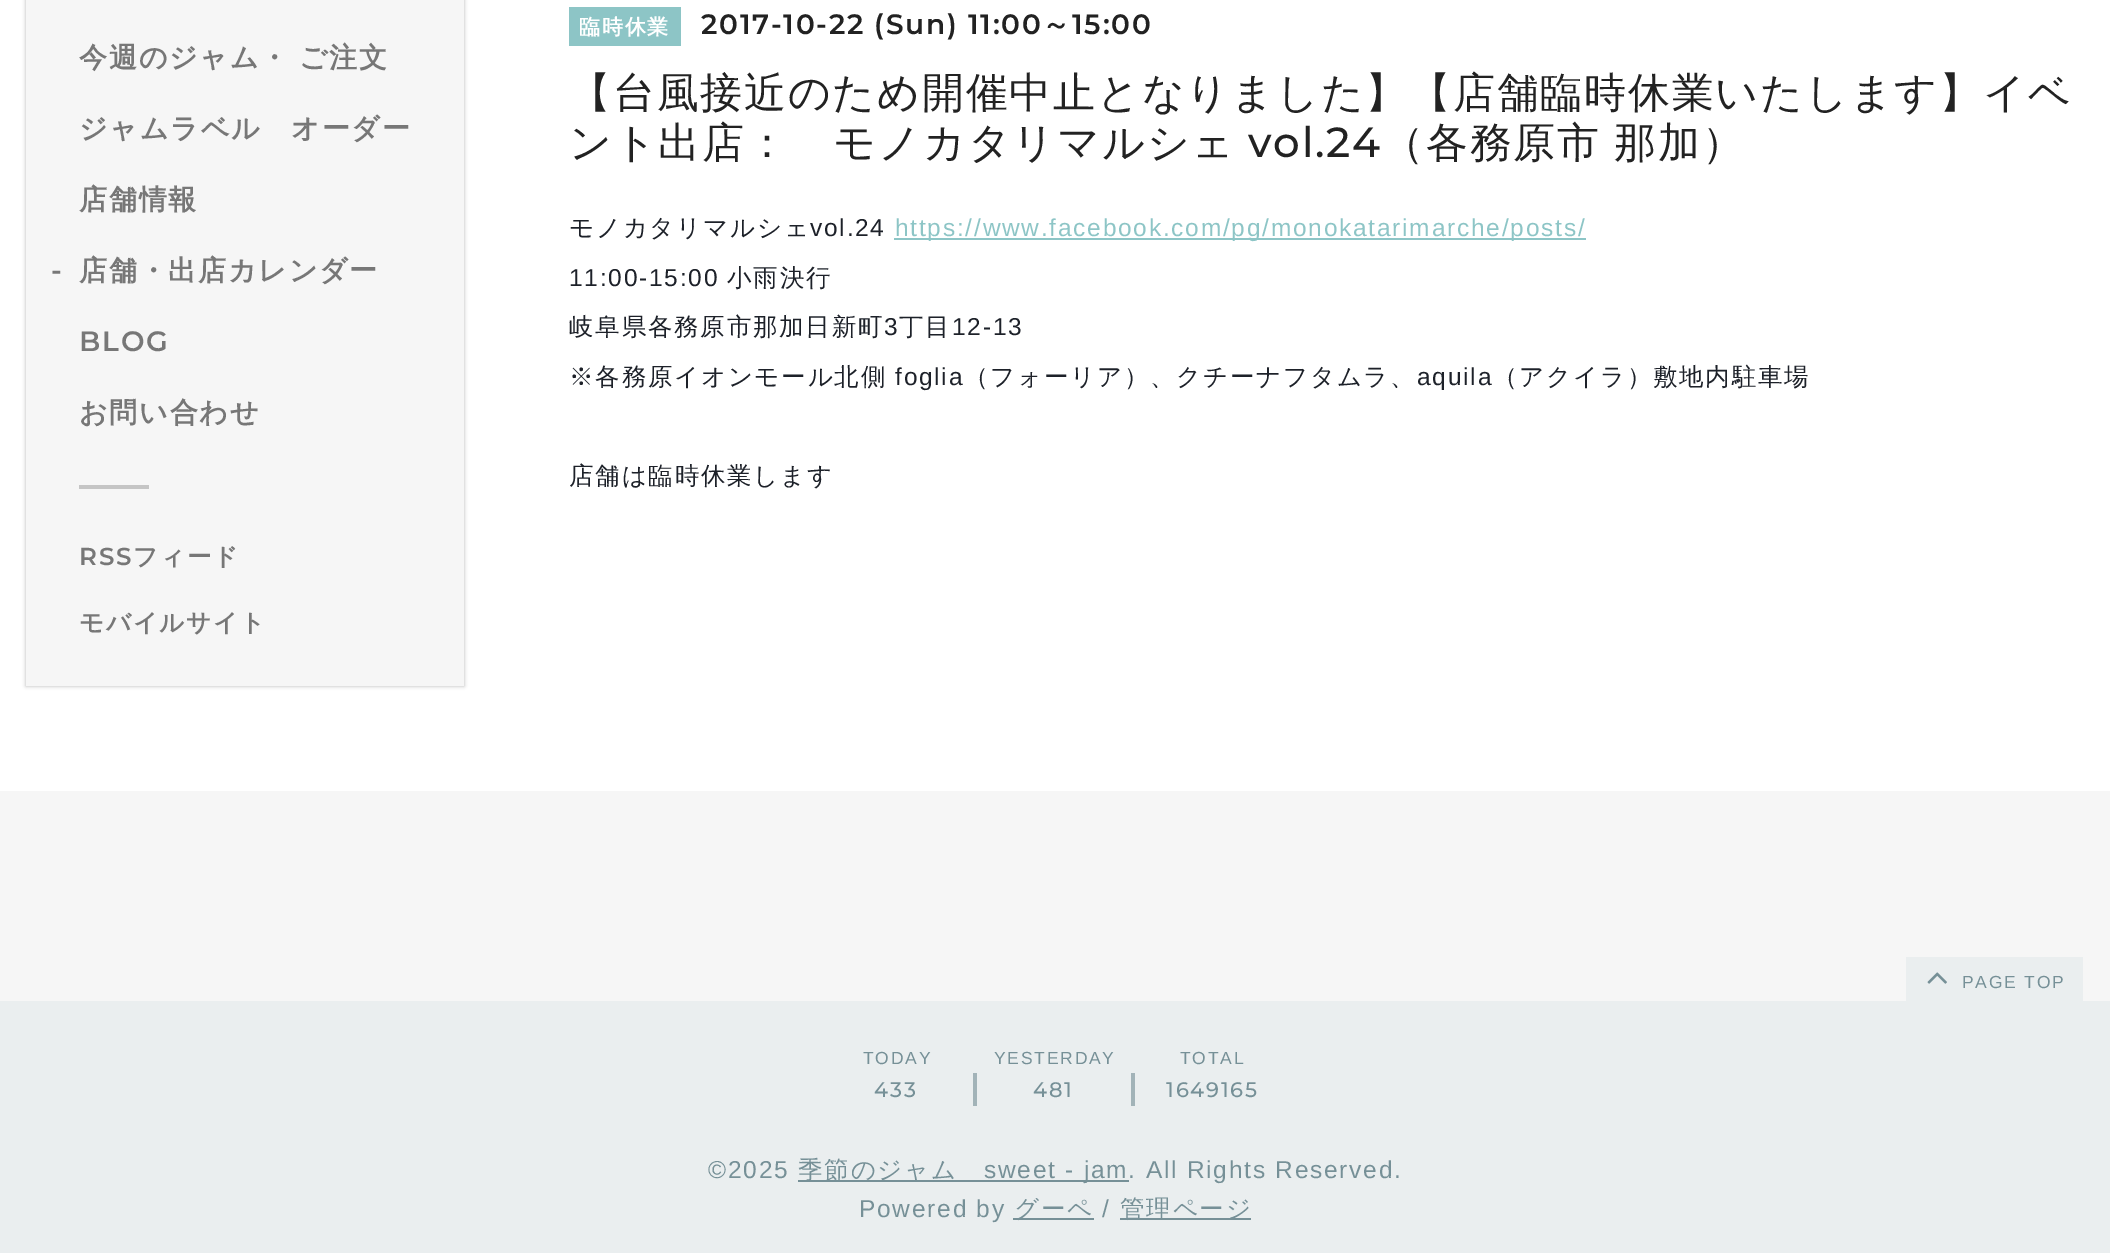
%!PS-Adobe-3.0
%%BoundingBox: 0 0 2110 1253
%%LanguageLevel: 3
%%Pages: 1
%%EndComments
%%BeginProlog
/setink { 3 { 255 div 3 1 roll } repeat setrgbcolor } def
/usefont { [ exch dup neg 0 0 3 -1 roll 0 0 ] selectfont } def
/fillbox { setink rectfill } def
/setalpha { dup .setfillconstantalpha .setstrokeconstantalpha } def
/rrect { 5 dict begin { /r /h /w /y /x } { exch def } forall
  x r add y moveto x w add y 2 copy h add r arct x w add y h add x 1 index r arct
  x y h add x y r arct x y 2 copy exch w add exch r arct closepath end } def
/softshadow { 12 dict begin { /a /b /q /h /w /y /x } { exch def } forall gsave /was 0 def
  9 -2 -9 { dup b mul 4 div /e exch def 1 sub .425 mul 2.718 exch exp 1 add a .99 .min exch div /now exch def
    1 1 now sub 1 was sub div sub setalpha /was now def
    w h .min e 2 mul add 0 gt { x e sub y e sub w e 2 mul add h e 2 mul add
      q e add b .6 mul add w h .min 2 div e add .min 0 .max rrect fill } if } for grestore end } def
/drawimage { 5 dict begin { /h /w /y /x /name } { exch def } forall
  gsave x y translate w h scale
  w h 8 [w 0 0 h 0 0] name (r) file false 3 colorimage grestore end } def
%%EndProlog
%%BeginSetup
<< /PageSize [2110 1253] /PageUsesTransparency true >> setpagedevice
%%EndSetup
%%Page: 1 1
0 .pushpdf14devicefilter
0 1253 translate 1 -1 scale
4 setmiterlimit
0 0 2110 1253 255 255 255 fillbox
0 0 0 setink
26 -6 438 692 0 2 0.3 softshadow
26 0 438 686 246 246 246 fillbox
/WenQuanYiZenHei-Bold 28 usefont
119 119 119 setink
79 67 moveto -1 0 32 1.75 0 (今週のジャム・ ご注文) awidthshow
79 138 moveto 1.75 0 (ジャムラベル　オーダー) ashow
79 209 moveto 1.75 0 (店舗情報) ashow
/Montserrat-SemiBold 28 usefont
51 280 moveto 1.75 0 (-) ashow
/WenQuanYiZenHei-Bold 28 usefont
79 280 moveto 1.75 0 (店舗・出店カレンダー) ashow
/Montserrat-SemiBold 28 usefont
79 351 moveto 1.75 0 (BLOG) ashow
/WenQuanYiZenHei-Bold 28 usefont
79 422 moveto 1.75 0 (お問い合わせ) ashow
79 485 70 4 197 197 197 fillbox
/Montserrat-SemiBold 24.5 usefont
119 119 119 setink
79 565 moveto 1.75 0 (RSS) ashow
/WenQuanYiZenHei-Bold 24.5 usefont
133 565 moveto 1.75 0 (フィード) ashow
79 631 moveto 1.75 0 (モバイルサイト) ashow
569 7 112 39 141 197 198 fillbox
/WenQuanYiZenHei-Bold 21 usefont
255 255 255 setink
579 34 moveto 1.75 0 (臨時休業) ashow
/Montserrat-SemiBold 28 usefont
34 34 34 setink
701 34 moveto 1.75 0 (2017-10-22 \(Sun\) 11:00) ashow
/WenQuanYiZenHei-Bold 28 usefont
1042 34 moveto 1.75 0 (～) ashow
/Montserrat-SemiBold 28 usefont
1072 34 moveto 1.75 0 (15:00) ashow
/WenQuanYiZenHei-Medium 42 usefont
569 107 moveto 1.75 0 (【台風接近のため開催中止となりました】【店舗臨時休業いたします】イベ) ashow
569 157 moveto 1.75 0 (ント出店：　モノカタリマルシェ) ashow
/Montserrat-Medium 42 usefont
1248 157 moveto 1.75 0 (vol.24) ashow
/WenQuanYiZenHei-Medium 42 usefont
1382 157 moveto -1 0 32 1.75 0 (（各務原市 那加）) awidthshow
/WenQuanYiZenHei-Medium 24.5 usefont
29 33 41 setink
569 236 moveto 1.75 0 (モノカタリマルシェ) ashow
/LiberationSans-Regular 24.5 usefont
810 236 moveto 1.75 0 (vol.24) ashow
894 238 692 2 141 197 198 fillbox
895 236 moveto 1.75 0 (https://www.facebook.com/pg/monokatarimarche/posts/) ashow
29 33 41 setink
569 286 moveto 1.75 0 (11:00-15:00) ashow
/WenQuanYiZenHei-Medium 24.5 usefont
727 286 moveto 1.75 0 (小雨決行) ashow
569 335 moveto 1.75 0 (岐阜県各務原市那加日新町) ashow
/LiberationSans-Regular 24.5 usefont
884 335 moveto 1.75 0 (3) ashow
/WenQuanYiZenHei-Medium 24.5 usefont
899 335 moveto 1.75 0 (丁目) ashow
/LiberationSans-Regular 24.5 usefont
952 335 moveto 1.75 0 (12-13) ashow
/WenQuanYiZenHei-Medium 24.5 usefont
569 385 moveto 1.75 0 (※各務原イオンモール北側) ashow
/LiberationSans-Regular 24.5 usefont
895 385 moveto 1.75 0 (foglia) ashow
/WenQuanYiZenHei-Medium 24.5 usefont
964 385 moveto 1.75 0 (（フォーリア）、クチーナフタムラ、) ashow
/LiberationSans-Regular 24.5 usefont
1417 385 moveto 1.75 0 (aquila) ashow
/WenQuanYiZenHei-Medium 24.5 usefont
1493 385 moveto 1.75 0 (（アクイラ）敷地内駐車場) ashow
569 484 moveto 1.75 0 (店舗は臨時休業します) ashow
0 791 2110 210 246 246 246 fillbox
0 1001 2110 252 234 238 239 fillbox
1906 957 177 44 234 238 239 fillbox
(assets/img1.rgb) 1927 972 20 12 drawimage
/LiberationSans-Regular 17.5 usefont
118 144 151 setink
1962 988 moveto 1.75 0 (PAGE TOP) ashow
863 1064 moveto 1.75 0 (TODAY) ashow
973 1073 4 33 162 179 184 fillbox
/Montserrat-Medium 21 usefont
118 144 151 setink
874 1097 moveto 1.75 0 (433) ashow
/LiberationSans-Regular 17.5 usefont
994 1064 moveto 1.75 0 (YESTERDAY) ashow
1131 1073 4 33 162 179 184 fillbox
/Montserrat-Medium 21 usefont
118 144 151 setink
1033 1097 moveto 1.75 0 (481) ashow
/LiberationSans-Regular 17.5 usefont
1180 1064 moveto 1.75 0 (TOTAL) ashow
/Montserrat-Medium 21 usefont
1166 1097 moveto 1.75 0 (1649165) ashow
/LiberationSans-Regular 24.5 usefont
708 1178 moveto 1.75 0 (©2025) ashow
798 1180 331 2 118 144 151 fillbox
/WenQuanYiZenHei-Medium 24.5 usefont
798 1178 moveto 1.75 0 (季節のジャム) ashow
/LiberationSans-Regular 24.5 usefont
984 1178 moveto 1.75 0 (sweet - jam. All Rights Reserved.) ashow
859 1217 moveto 1.75 0 (Powered by) ashow
1013 1218 81 2 118 144 151 fillbox
/WenQuanYiZenHei-Medium 24.5 usefont
1014 1217 moveto 1.75 0 (グーペ) ashow
/LiberationSans-Regular 24.5 usefont
1102 1217 moveto 1.75 0 (/) ashow
1120 1218 131 2 118 144 151 fillbox
/WenQuanYiZenHei-Medium 24.5 usefont
1120 1217 moveto 1.75 0 (管理ページ) ashow
.poppdf14devicefilter showpage
%%EOF
